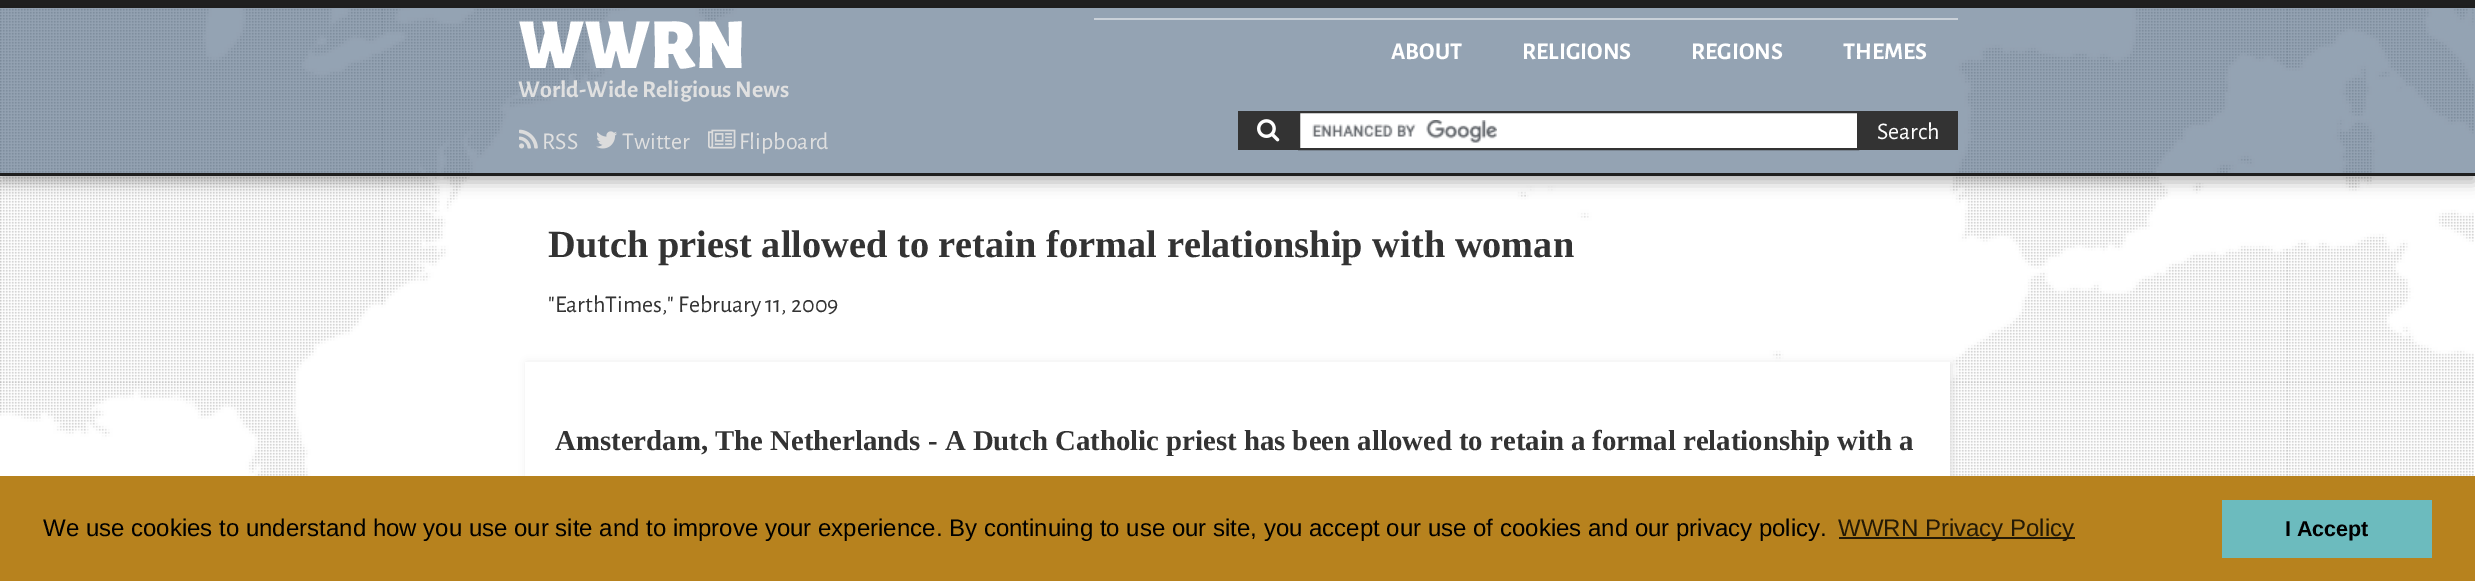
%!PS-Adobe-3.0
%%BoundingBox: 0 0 2475 581
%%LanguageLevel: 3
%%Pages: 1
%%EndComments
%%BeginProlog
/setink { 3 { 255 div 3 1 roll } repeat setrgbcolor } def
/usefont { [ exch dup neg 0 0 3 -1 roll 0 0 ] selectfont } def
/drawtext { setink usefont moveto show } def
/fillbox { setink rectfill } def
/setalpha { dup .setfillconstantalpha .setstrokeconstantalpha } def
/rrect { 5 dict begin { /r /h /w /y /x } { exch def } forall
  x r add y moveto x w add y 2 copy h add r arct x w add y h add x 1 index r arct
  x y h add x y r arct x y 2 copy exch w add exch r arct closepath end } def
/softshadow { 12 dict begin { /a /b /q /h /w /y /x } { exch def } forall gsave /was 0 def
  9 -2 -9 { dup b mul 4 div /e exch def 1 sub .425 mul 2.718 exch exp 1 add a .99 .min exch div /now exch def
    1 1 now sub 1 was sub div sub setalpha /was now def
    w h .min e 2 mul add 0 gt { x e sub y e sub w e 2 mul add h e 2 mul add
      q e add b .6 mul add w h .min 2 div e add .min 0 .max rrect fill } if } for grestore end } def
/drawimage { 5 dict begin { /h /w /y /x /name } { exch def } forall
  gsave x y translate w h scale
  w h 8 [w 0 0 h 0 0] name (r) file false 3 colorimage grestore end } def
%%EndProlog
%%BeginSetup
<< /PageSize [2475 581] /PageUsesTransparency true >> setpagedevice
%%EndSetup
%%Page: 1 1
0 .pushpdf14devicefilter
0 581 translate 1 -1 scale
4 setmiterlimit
0 0 2475 581 255 255 255 fillbox
(assets/img1.rgb) 0 8 2474 468 drawimage
0 0 2475 8 31 31 31 fillbox
gsave
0 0 moveto 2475 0 lineto 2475 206 lineto 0 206 lineto closepath 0 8 moveto 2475 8 lineto 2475 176 lineto 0 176 lineto closepath eoclip newpath
0 0 0 setink
0 14 2475 168 0 7.5 0.3 softshadow
grestore
0.5 setalpha
0 8 2475 165 42 71 103 fillbox
1 setalpha
0 173 2475 3 31 31 31 fillbox
(WWRN) 518 68 /AlegreyaSans-Black 72 255 255 255 drawtext
(World-Wide Religious News) 518 97 /AlegreyaSans-Bold 24 224 224 224 drawtext
1094 18 864 2 202 209 217 fillbox
(ABOUT) 1391 59 /AlegreyaSans-Bold 24 255 255 255 drawtext
(RELIGIONS) 1522 59 /AlegreyaSans-Bold 24 255 255 255 drawtext
(REGIONS) 1691 59 /AlegreyaSans-Bold 24 255 255 255 drawtext
(THEMES) 1843 59 /AlegreyaSans-Bold 24 255 255 255 drawtext
(assets/img2.rgb) 519 129 19 20 drawimage
(RSS) 542 149 /AlegreyaSans-Regular 24 224 224 224 drawtext
(assets/img3.rgb) 596 131 21 18 drawimage
(Twitter) 622 149 /AlegreyaSans-Regular 24 224 224 224 drawtext
(assets/img4.rgb) 708 129 28 20 drawimage
(Flipboard) 739 149 /AlegreyaSans-Regular 24 224 224 224 drawtext
1238 111 60 39 51 51 51 fillbox
(assets/img5.rgb) 1257 119 23 23 drawimage
1300 113 557 35 255 255 255 fillbox
(assets/img6.rgb) 1312 120 185 23 drawimage
51 51 51 setink
2 setlinewidth
1299 112 559 37 rectstroke
1859 111 99 39 51 51 51 fillbox
(Search) 1877 139 /AlegreyaSans-Regular 24 255 255 255 drawtext
(Dutch priest allowed to retain formal relationship with woman) 548 257 /LiberationSerif-Bold 38.4 51 51 51 drawtext
("EarthTimes," February 11, 2009) 548 312 /AlegreyaSans-Regular 24 51 51 51 drawtext
gsave
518 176 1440 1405 rectclip
225 225 225 setink
527 363 1425 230 0 4 1 softshadow
grestore
525 362 1425 114 255 255 255 fillbox
(Amsterdam, The Netherlands - A Dutch Catholic priest has been allowed to retain a formal relationship with a) 555 450 /LiberationSerif-Bold 28.8 51 51 51 drawtext
0 476 2475 105 183 130 30 fillbox
(We use cookies to understand how you use our site and to improve your experience. By continuing to use our site, you accept our use of cookies and our privacy policy.) 43 536 /LiberationSans-Regular 24 0 0 0 drawtext
1839 537 236 2 37 26 6 fillbox
(WWRN Privacy Policy) 1838 536 /LiberationSans-Regular 24 37 26 6 drawtext
2222 500 210 58 108 187 190 fillbox
(I Accept) 2285 536 /LiberationSans-Bold 21.5 0 0 0 drawtext
.poppdf14devicefilter showpage
%%EOF
